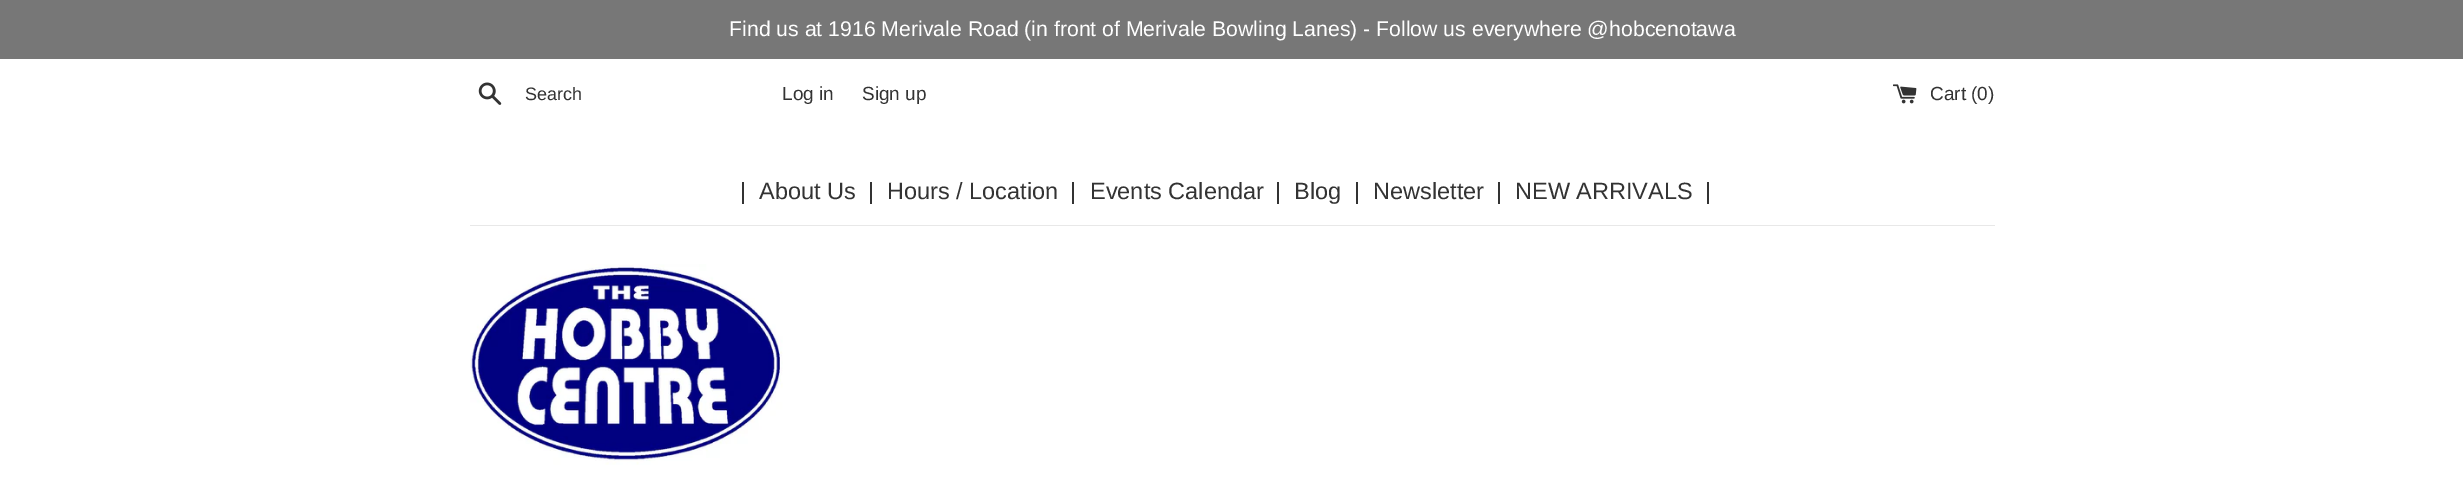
%!PS-Adobe-3.0
%%BoundingBox: 0 0 2463 502
%%LanguageLevel: 3
%%Pages: 1
%%EndComments
%%BeginProlog
/setink { 3 { 255 div 3 1 roll } repeat setrgbcolor } def
/usefont { [ exch dup neg 0 0 3 -1 roll 0 0 ] selectfont } def
/drawtext { setink usefont moveto show } def
/fillbox { setink rectfill } def
/drawimage { 5 dict begin { /h /w /y /x /name } { exch def } forall
  gsave x y translate w h scale
  w h 8 [w 0 0 h 0 0] name (r) file false 3 colorimage grestore end } def
%%EndProlog
%%BeginSetup
<< /PageSize [2463 502] >> setpagedevice
%%EndSetup
%%Page: 1 1
0 502 translate 1 -1 scale
4 setmiterlimit
0 0 2463 502 255 255 255 fillbox
0 0 2463 59 119 119 119 fillbox
(Find us at 1916 Merivale Road \(in front of Merivale Bowling Lanes\) - Follow us everywhere @hobcenotawa) 729 36 /LiberationSans-Regular 21.25 255 255 255 drawtext
(assets/img1.rgb) 478 82 24 23 drawimage
(Search) 525 100 /LiberationSans-Regular 18 51 51 51 drawtext
(Log in) 782 100 /LiberationSans-Regular 19 51 51 51 drawtext
(Sign up) 862 100 /LiberationSans-Regular 19 51 51 51 drawtext
(assets/img2.rgb) 1893 84 24 20 drawimage
(Cart \(0\)) 1930 100 /LiberationSans-Regular 19 51 51 51 drawtext
(|) 740 199 /LiberationSans-Regular 23.5 51 51 51 drawtext
(About Us) 759 199 /LiberationSans-Regular 23.5 51 51 51 drawtext
(|) 868 199 /LiberationSans-Regular 23.5 51 51 51 drawtext
(Hours / Location) 887 199 /LiberationSans-Regular 23.5 51 51 51 drawtext
(|) 1070 199 /LiberationSans-Regular 23.5 51 51 51 drawtext
(Events Calendar) 1090 199 /LiberationSans-Regular 23.5 51 51 51 drawtext
(|) 1275 199 /LiberationSans-Regular 23.5 51 51 51 drawtext
(Blog) 1294 199 /LiberationSans-Regular 23.5 51 51 51 drawtext
(|) 1354 199 /LiberationSans-Regular 23.5 51 51 51 drawtext
(Newsletter) 1373 199 /LiberationSans-Regular 23.5 51 51 51 drawtext
(|) 1496 199 /LiberationSans-Regular 23.5 51 51 51 drawtext
(NEW ARRIVALS) 1515 199 /LiberationSans-Regular 23.5 51 51 51 drawtext
(|) 1705 199 /LiberationSans-Regular 23.5 51 51 51 drawtext
470 225 1525 1 232 232 232 fillbox
(assets/img3.rgb) 470 264 313 201 drawimage
showpage
%%EOF
